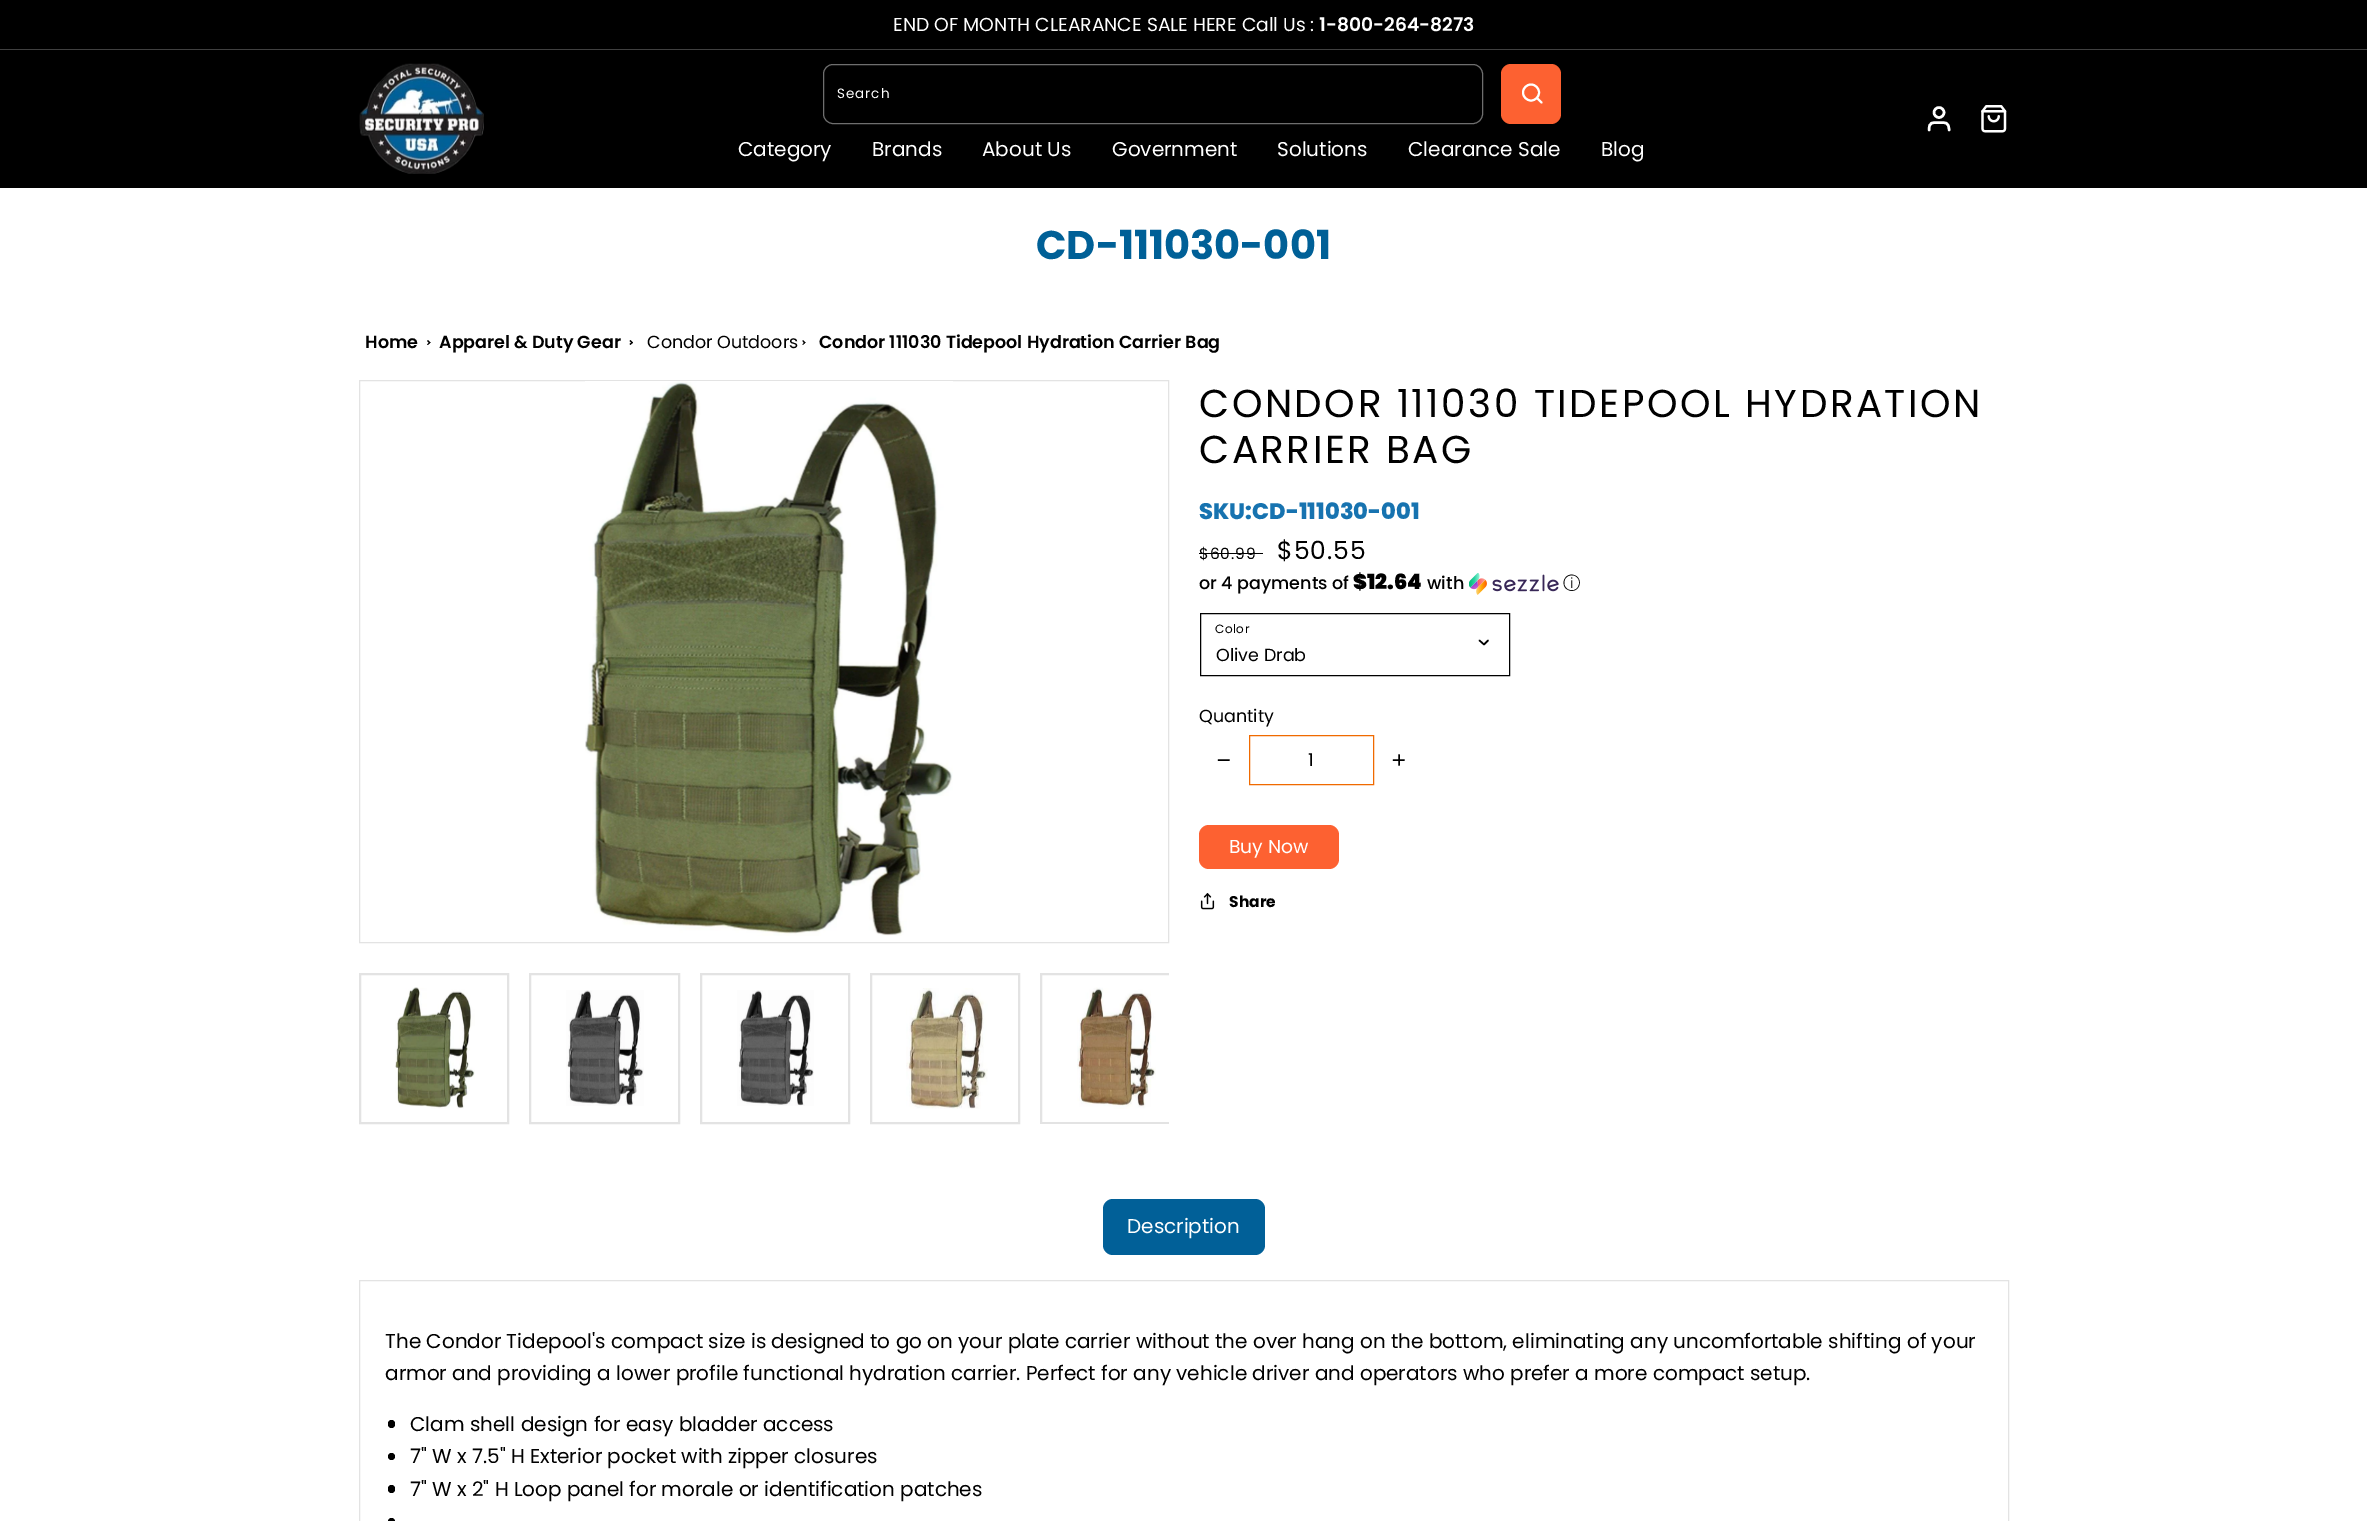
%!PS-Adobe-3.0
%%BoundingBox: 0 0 2367 1521
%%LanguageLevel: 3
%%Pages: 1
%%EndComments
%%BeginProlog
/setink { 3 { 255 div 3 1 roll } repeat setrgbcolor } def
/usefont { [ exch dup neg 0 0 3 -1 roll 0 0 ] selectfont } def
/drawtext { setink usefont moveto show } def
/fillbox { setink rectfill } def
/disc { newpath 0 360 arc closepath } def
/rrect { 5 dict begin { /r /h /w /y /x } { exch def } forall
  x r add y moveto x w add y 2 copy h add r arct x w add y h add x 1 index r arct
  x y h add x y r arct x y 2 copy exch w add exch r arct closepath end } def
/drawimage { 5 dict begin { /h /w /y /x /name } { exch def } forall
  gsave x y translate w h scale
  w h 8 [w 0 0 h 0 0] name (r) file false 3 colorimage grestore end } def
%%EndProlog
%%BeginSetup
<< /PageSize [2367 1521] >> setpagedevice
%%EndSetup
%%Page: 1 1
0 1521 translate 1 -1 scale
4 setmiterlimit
0 0 2367 1521 255 255 255 fillbox
0 0 2367 49 0 0 0 fillbox
0 49 2367 1 64 64 64 fillbox
(END OF MONTH CLEARANCE SALE HERE Call Us :) 893 31 /Poppins-Regular 18.75 255 255 255 drawtext
(1-800-264-8273) 1319 31 /Poppins-SemiBold 18.75 255 255 255 drawtext
0 50 2367 138 0 0 0 fillbox
(assets/img1.rgb) 359 63 125 111 drawimage
110 110 110 setink
823.5 64.5 659 59 9.5 rrect stroke
253 97 49 setink
1501 64 60 60 10 rrect fill
255 255 255 setink
2 setlinewidth
1531 92.5 8 disc stroke
1 setlinecap
1 setlinejoin
1541.5 102.5 moveto 1537 98 lineto stroke
/Poppins-Regular 13.5 usefont
837 98 moveto 1 0 (Search) ashow
(Category) 738 156 /Poppins-Regular 20 255 255 255 drawtext
(Brands) 872 156 /Poppins-Regular 20 255 255 255 drawtext
(About Us) 982 156 /Poppins-Regular 20 255 255 255 drawtext
(Government) 1112 156 /Poppins-Regular 20 255 255 255 drawtext
(Solutions) 1277 156 /Poppins-Regular 20 255 255 255 drawtext
(Clearance Sale) 1408 156 /Poppins-Regular 20 255 255 255 drawtext
(Blog) 1601 156 /Poppins-Regular 20 255 255 255 drawtext
2.5 setlinewidth
1949 130 moveto 1949 122 1945.5 122.5 1939 122.5 curveto 1932 122.5 1929 122 1929 130 curveto stroke
0 setlinecap
0 setlinejoin
1939 112.5 5 disc stroke
(assets/img2.rgb) 1981 105 26 28 drawimage
(CD-111030-001) 1036 259 /Poppins-Bold 40 0 96 151 drawtext
(Home) 365 348 /Poppins-SemiBold 17.5 0 0 0 drawtext
428 340 moveto 430.5 342.5 lineto 429.5 343.5 lineto 427 341 lineto closepath fill
429.5 342 moveto 430.5 342.5 lineto 428 345 lineto 427 344.5 lineto closepath fill
(Apparel & Duty Gear) 439 348 /Poppins-SemiBold 17.5 0 0 0 drawtext
630.5 340 moveto 633 342.5 lineto 632 343.5 lineto 629.5 341 lineto closepath fill
632 342 moveto 633 342.5 lineto 630.5 345 lineto 629.5 344 lineto closepath fill
(Condor Outdoors) 647 348 /Poppins-Regular 17.5 0 0 0 drawtext
803 340 moveto 805.5 342.5 lineto 804.5 343.5 lineto 802.5 341 lineto closepath fill
804.5 342 moveto 805.5 342.5 lineto 803 345 lineto 802.5 344.5 lineto closepath fill
(Condor 111030 Tidepool Hydration Carrier Bag) 819 348 /Poppins-SemiBold 17.5 0 0 0 drawtext
227 227 227 setink
1 setlinewidth
359.5 380.5 809 562 rectstroke
(assets/img3.rgb) 585 381 368 555 drawimage
359.5 973.5 149 150 rectstroke
360.5 974.5 147 148 rectstroke
(assets/img4.rgb) 395 987 80 122 drawimage
529.5 973.5 150 150 rectstroke
530.5 974.5 148 148 rectstroke
(assets/img5.rgb) 566 990 78 116 drawimage
700.5 973.5 149 150 rectstroke
701.5 974.5 147 148 rectstroke
(assets/img6.rgb) 737 990 77 116 drawimage
870.5 973.5 149 150 rectstroke
871.5 974.5 147 148 rectstroke
(assets/img7.rgb) 906 988 82 121 drawimage
gsave
359 973 810 151 rectclip
1040.5 973.5 149 150 rectstroke
grestore
gsave
1041 974 128 149 rectclip
1041.5 974.5 147 148 rectstroke
grestore
(assets/img8.rgb) 1077 987 79 122 drawimage
/Poppins-Regular 38.9 usefont
0 0 0 setink
1199 417 moveto 2.5 0 (CONDOR 111030 TIDEPOOL HYDRATION) ashow
1199 463 moveto 2.5 0 (CARRIER BAG) ashow
(SKU:CD-111030-001) 1199 519 /Poppins-ExtraBold 22.5 23 115 176 drawtext
/Poppins-Regular 15.5 usefont
0 0 0 setink
1199 559 moveto 1 0 ($60.99) ashow
1199 553 64 1 0 0 0 fillbox
/Poppins-Regular 25 usefont
1277 559 moveto 1 0 ($50.55) ashow
(or 4 payments of) 1199 589 /Poppins-Medium 17.5 0 0 0 drawtext
($12.64) 1353 589 /Poppins-Black 21 0 0 0 drawtext
(with) 1427 589 /Poppins-Medium 17.5 0 0 0 drawtext
(assets/img9.rgb) 1469 573 90 22 drawimage
(ⓘ) 1563 589 /WenQuanYiZenHei-Medium 17.5 0 0 0 drawtext
1200.5 613.5 309 62 rectstroke
/Poppins-Regular 12 usefont
1215 633 moveto 0.5 0 (Color) ashow
1.5 setlinewidth
1 setlinecap
1 setlinejoin
1479.5 640.5 moveto 1484 644.5 lineto 1488 640.5 lineto stroke
(Olive Drab) 1216 661 /Poppins-Regular 17.5 0 0 0 drawtext
(Quantity) 1199 722 /Poppins-Regular 17.5 0 0 0 drawtext
1218.5 760 moveto 1229 760 lineto stroke
240 106 0 setink
1 setlinewidth
0 setlinecap
0 setlinejoin
1249.5 735.5 124 49 rectstroke
(1) 1308 766 /Poppins-Regular 17.5 0 0 0 drawtext
1.5 setlinewidth
1 setlinecap
1 setlinejoin
1399 755 moveto 1399 765 lineto 1393.5 760 moveto 1404 760 lineto stroke
253 97 49 setink
1199 825 140 44 10 rrect fill
(Buy Now) 1229 853 /Poppins-Regular 18.75 255 255 255 drawtext
(assets/img10.rgb) 1200 893 15 17 drawimage
(Share) 1229 907 /Poppins-Bold 15.5 0 0 0 drawtext
1 96 152 setink
1103 1199 162 56 10 rrect fill
(Description) 1127 1233 /Poppins-Regular 20 255 255 255 drawtext
227 227 227 setink
1 setlinewidth
0 setlinecap
0 setlinejoin
359.5 1280.5 1649 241 rectstroke
(The Condor Tidepool's compact size is designed to go on your plate carrier without the over hang on the bottom, eliminating any uncomfortable shifting of your) 385 1348 /Poppins-Regular 20 0 0 0 drawtext
(armor and providing a lower profile functional hydration carrier. Perfect for any vehicle driver and operators who prefer a more compact setup.) 385 1380 /Poppins-Regular 20 0 0 0 drawtext
388 1420 7 8 3.5 rrect fill
(Clam shell design for easy bladder access) 410 1431 /Poppins-Regular 20 0 0 0 drawtext
391.5 1456.5 3.5 disc fill
(7" W x 7.5" H Exterior pocket with zipper closures) 410 1463 /Poppins-Regular 20 0 0 0 drawtext
388 1485 7 8 3.5 rrect fill
(7" W x 2" H Loop panel for morale or identification patches) 410 1496 /Poppins-Regular 20 0 0 0 drawtext
391.5 1521.5 3.5 disc fill
showpage
%%EOF
